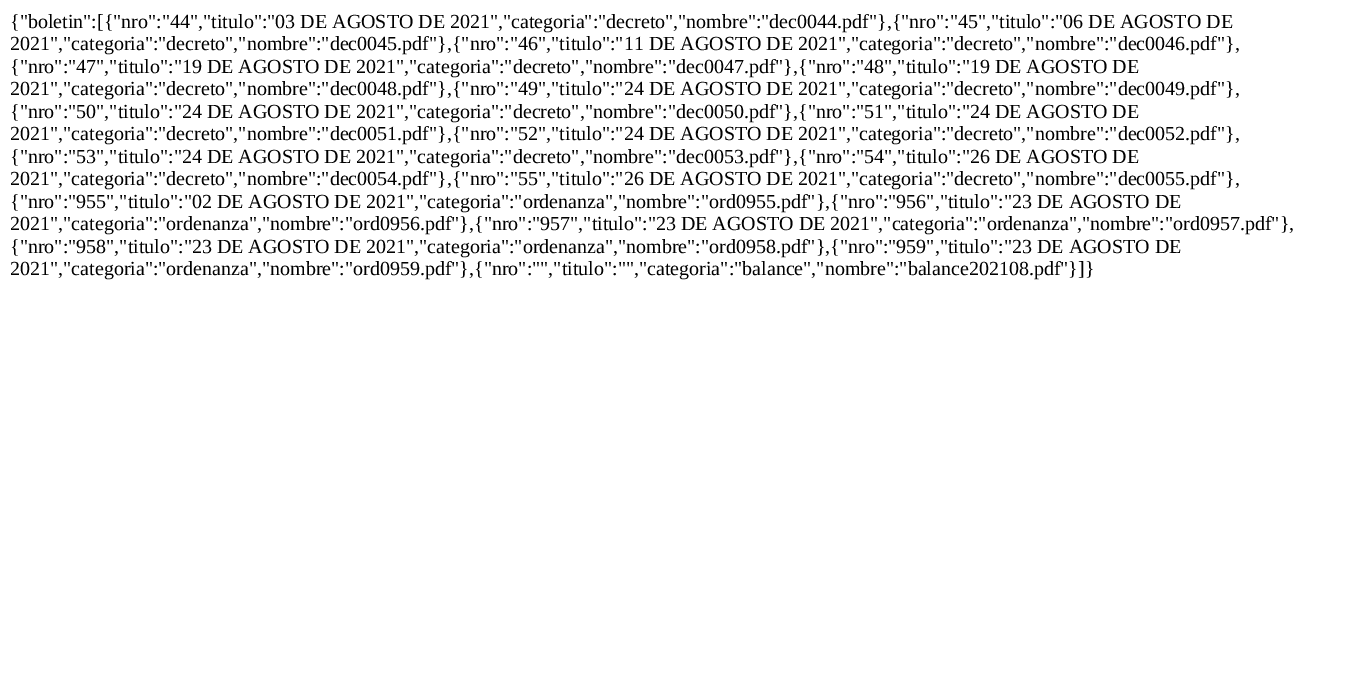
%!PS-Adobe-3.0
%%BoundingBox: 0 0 1346 686
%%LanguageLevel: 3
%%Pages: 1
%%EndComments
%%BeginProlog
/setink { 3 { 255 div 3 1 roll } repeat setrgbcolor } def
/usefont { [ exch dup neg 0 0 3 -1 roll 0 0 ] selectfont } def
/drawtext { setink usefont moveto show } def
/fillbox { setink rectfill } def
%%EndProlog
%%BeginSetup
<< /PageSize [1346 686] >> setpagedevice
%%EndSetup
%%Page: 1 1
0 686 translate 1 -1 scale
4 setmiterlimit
0 0 1346 686 255 255 255 fillbox
({"boletin":[{"nro":"44","titulo":"03 DE AGOSTO DE 2021","categoria":"decreto","nombre":"dec0044.pdf"},{"nro":"45","titulo":"06 DE AGOSTO DE) 10 28 /LiberationSerif-Regular 20 0 0 0 drawtext
(2021","categoria":"decreto","nombre":"dec0045.pdf"},{"nro":"46","titulo":"11 DE AGOSTO DE 2021","categoria":"decreto","nombre":"dec0046.pdf"},) 10 50 /LiberationSerif-Regular 20 0 0 0 drawtext
({"nro":"47","titulo":"19 DE AGOSTO DE 2021","categoria":"decreto","nombre":"dec0047.pdf"},{"nro":"48","titulo":"19 DE AGOSTO DE) 10 73 /LiberationSerif-Regular 20 0 0 0 drawtext
(2021","categoria":"decreto","nombre":"dec0048.pdf"},{"nro":"49","titulo":"24 DE AGOSTO DE 2021","categoria":"decreto","nombre":"dec0049.pdf"},) 10 95 /LiberationSerif-Regular 20 0 0 0 drawtext
({"nro":"50","titulo":"24 DE AGOSTO DE 2021","categoria":"decreto","nombre":"dec0050.pdf"},{"nro":"51","titulo":"24 DE AGOSTO DE) 10 118 /LiberationSerif-Regular 20 0 0 0 drawtext
(2021","categoria":"decreto","nombre":"dec0051.pdf"},{"nro":"52","titulo":"24 DE AGOSTO DE 2021","categoria":"decreto","nombre":"dec0052.pdf"},) 10 140 /LiberationSerif-Regular 20 0 0 0 drawtext
({"nro":"53","titulo":"24 DE AGOSTO DE 2021","categoria":"decreto","nombre":"dec0053.pdf"},{"nro":"54","titulo":"26 DE AGOSTO DE) 10 163 /LiberationSerif-Regular 20 0 0 0 drawtext
(2021","categoria":"decreto","nombre":"dec0054.pdf"},{"nro":"55","titulo":"26 DE AGOSTO DE 2021","categoria":"decreto","nombre":"dec0055.pdf"},) 10 185 /LiberationSerif-Regular 20 0 0 0 drawtext
({"nro":"955","titulo":"02 DE AGOSTO DE 2021","categoria":"ordenanza","nombre":"ord0955.pdf"},{"nro":"956","titulo":"23 DE AGOSTO DE) 10 208 /LiberationSerif-Regular 20 0 0 0 drawtext
(2021","categoria":"ordenanza","nombre":"ord0956.pdf"},{"nro":"957","titulo":"23 DE AGOSTO DE 2021","categoria":"ordenanza","nombre":"ord0957.pdf"},) 10 230 /LiberationSerif-Regular 20 0 0 0 drawtext
({"nro":"958","titulo":"23 DE AGOSTO DE 2021","categoria":"ordenanza","nombre":"ord0958.pdf"},{"nro":"959","titulo":"23 DE AGOSTO DE) 10 253 /LiberationSerif-Regular 20 0 0 0 drawtext
(2021","categoria":"ordenanza","nombre":"ord0959.pdf"},{"nro":"","titulo":"","categoria":"balance","nombre":"balance202108.pdf"}]}) 10 275 /LiberationSerif-Regular 20 0 0 0 drawtext
showpage
%%EOF
